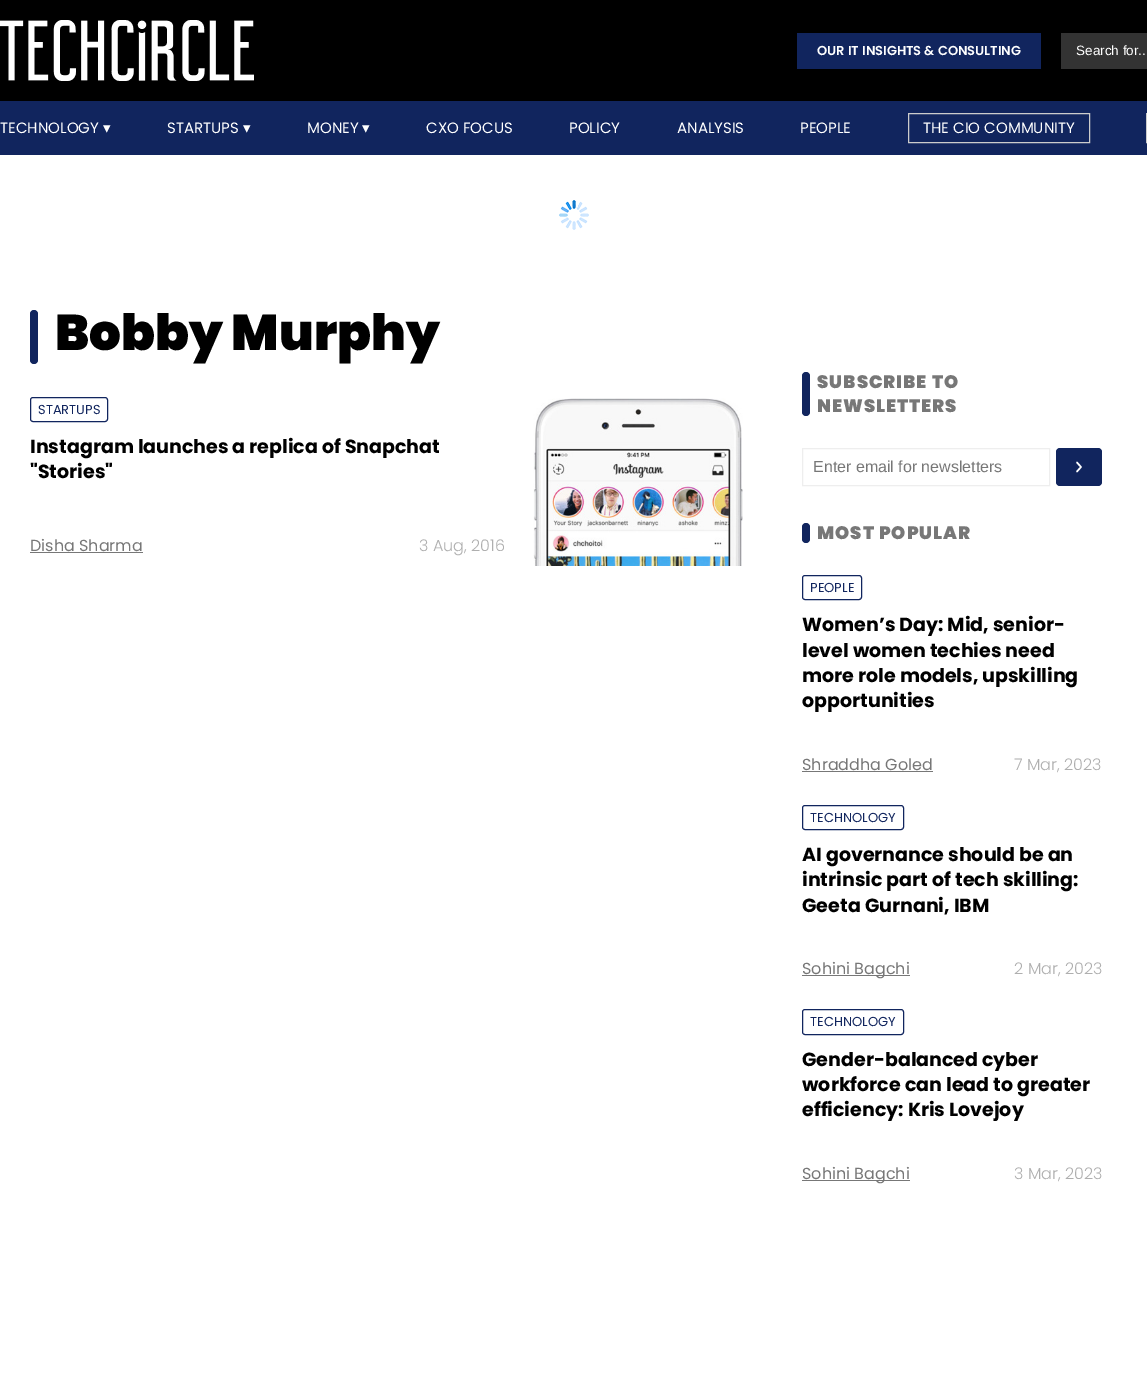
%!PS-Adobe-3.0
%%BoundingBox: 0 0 1147 1387
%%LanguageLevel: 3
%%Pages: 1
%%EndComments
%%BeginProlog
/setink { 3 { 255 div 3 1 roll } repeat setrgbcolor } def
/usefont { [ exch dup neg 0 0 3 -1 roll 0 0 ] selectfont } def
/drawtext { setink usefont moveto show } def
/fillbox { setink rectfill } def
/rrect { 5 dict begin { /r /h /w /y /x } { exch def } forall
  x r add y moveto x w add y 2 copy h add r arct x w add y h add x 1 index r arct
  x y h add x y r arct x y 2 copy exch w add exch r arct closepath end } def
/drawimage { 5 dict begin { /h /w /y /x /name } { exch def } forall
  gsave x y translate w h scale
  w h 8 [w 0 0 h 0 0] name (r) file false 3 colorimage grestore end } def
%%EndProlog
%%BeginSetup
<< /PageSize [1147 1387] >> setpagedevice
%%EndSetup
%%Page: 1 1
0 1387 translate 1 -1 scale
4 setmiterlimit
0 0 1147 1387 255 255 255 fillbox
0 0 1147 101 0 0 0 fillbox
(assets/img1.rgb) 0 20 254 61 drawimage
797 33 244 36 17 37 94 fillbox
(OUR IT INSIGHTS & CONSULTING) 817 55 /Poppins-SemiBold 13 255 255 255 drawtext
1061 33 86 36 51 51 51 fillbox
(Search for...) 1076 55 /LiberationSans-Regular 13.5 255 255 255 drawtext
0 101 1147 54 17 37 94 fillbox
(TECHNOLOGY) 0 133 /Poppins-Regular 15 255 255 255 drawtext
(▾) 103 133 /DejaVuSans-Regular 15 255 255 255 drawtext
(STARTUPS) 167 133 /Poppins-Regular 15 255 255 255 drawtext
(▾) 243 133 /DejaVuSans-Regular 15 255 255 255 drawtext
(MONEY) 307 133 /Poppins-Regular 15 255 255 255 drawtext
(▾) 362 133 /DejaVuSans-Regular 15 255 255 255 drawtext
(CXO FOCUS) 426 133 /Poppins-Regular 15 255 255 255 drawtext
(POLICY) 569 133 /Poppins-Regular 15 255 255 255 drawtext
(ANALYSIS) 677 133 /Poppins-Regular 15 255 255 255 drawtext
(PEOPLE) 800 133 /Poppins-Regular 15 255 255 255 drawtext
204 204 204 setink
908.5 113.5 181 29 rectstroke
(THE CIO COMMUNITY) 923 133 /Poppins-Regular 15 255 255 255 drawtext
204 204 204 setink
1146.5 113.5 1 29 rectstroke
(assets/img2.rgb) 559 200 30 30 drawimage
17 37 94 setink
30 310 8 54 4 rrect fill
(Bobby Murphy) 55 350 /Poppins-Black 50 0 0 0 drawtext
17 37 94 setink
30.5 397.5 77 24 2.5 rrect stroke
(STARTUPS) 38 414 /Poppins-Regular 13 17 37 94 drawtext
(Instagram launches a replica of Snapchat) 30 453 /Poppins-Bold 19 0 0 0 drawtext
("Stories") 30 478 /Poppins-Bold 19 0 0 0 drawtext
(Disha Sharma) 30 551 /Poppins-Regular 16 119 119 119 drawtext
30 552 113 1 119 119 119 fillbox
(3 Aug, 2016) 419 551 /Poppins-Light 16 175 175 175 drawtext
(assets/img3.rgb) 533 398 210 168 drawimage
17 37 94 setink
802 372 8 44 4 rrect fill
/Poppins-Black 18 usefont
119 119 119 setink
817 388 moveto 1 0 (SUBSCRIBE TO) ashow
817 412 moveto 1 0 (NEWSLETTERS) ashow
238 238 238 setink
802.5 448.5 247 37 rectstroke
(Enter email for newsletters) 813 472 /LiberationSans-Regular 16 119 119 119 drawtext
17 37 94 setink
1056 448 46 38 4 rrect fill
255 255 255 setink
1.5 setlinewidth
1 setlinecap
1 setlinejoin
1077 462.5 moveto 1081 467 lineto 1077 471.5 lineto stroke
17 37 94 setink
802 523 8 20 4 rrect fill
/Poppins-Black 18 usefont
119 119 119 setink
817 539 moveto 1 0 (MOST POPULAR) ashow
17 37 94 setink
1 setlinewidth
0 setlinecap
0 setlinejoin
802.5 575.5 59 24 2.5 rrect stroke
(PEOPLE) 810 592 /Poppins-Regular 13 17 37 94 drawtext
(Women’s Day: Mid, senior-) 802 631 /Poppins-Bold 19 0 0 0 drawtext
(level women techies need) 802 657 /Poppins-Bold 19 0 0 0 drawtext
(more role models, upskilling) 802 682 /Poppins-Bold 19 0 0 0 drawtext
(opportunities) 802 707 /Poppins-Bold 19 0 0 0 drawtext
(Shraddha Goled) 802 770 /Poppins-Regular 16 119 119 119 drawtext
802 771 131 1 119 119 119 fillbox
(7 Mar, 2023) 1014 770 /Poppins-Light 16 175 175 175 drawtext
17 37 94 setink
802.5 805.5 101 24 2.5 rrect stroke
(TECHNOLOGY) 810 822 /Poppins-Regular 13 17 37 94 drawtext
(AI governance should be an) 802 861 /Poppins-Bold 19 0 0 0 drawtext
(intrinsic part of tech skilling:) 802 886 /Poppins-Bold 19 0 0 0 drawtext
(Geeta Gurnani, IBM) 802 912 /Poppins-Bold 19 0 0 0 drawtext
802 975 108 1 119 119 119 fillbox
(Sohini Bagchi) 802 974 /Poppins-Regular 16 119 119 119 drawtext
(2 Mar, 2023) 1014 974 /Poppins-Light 16 175 175 175 drawtext
17 37 94 setink
802.5 1009.5 101 25 2.5 rrect stroke
(TECHNOLOGY) 810 1026 /Poppins-Regular 13 17 37 94 drawtext
(Gender-balanced cyber) 802 1066 /Poppins-Bold 19 0 0 0 drawtext
(workforce can lead to greater) 802 1091 /Poppins-Bold 19 0 0 0 drawtext
(efficiency: Kris Lovejoy) 802 1116 /Poppins-Bold 19 0 0 0 drawtext
802 1180 108 1 119 119 119 fillbox
(Sohini Bagchi) 802 1179 /Poppins-Regular 16 119 119 119 drawtext
(3 Mar, 2023) 1014 1179 /Poppins-Light 16 175 175 175 drawtext
showpage
%%EOF
